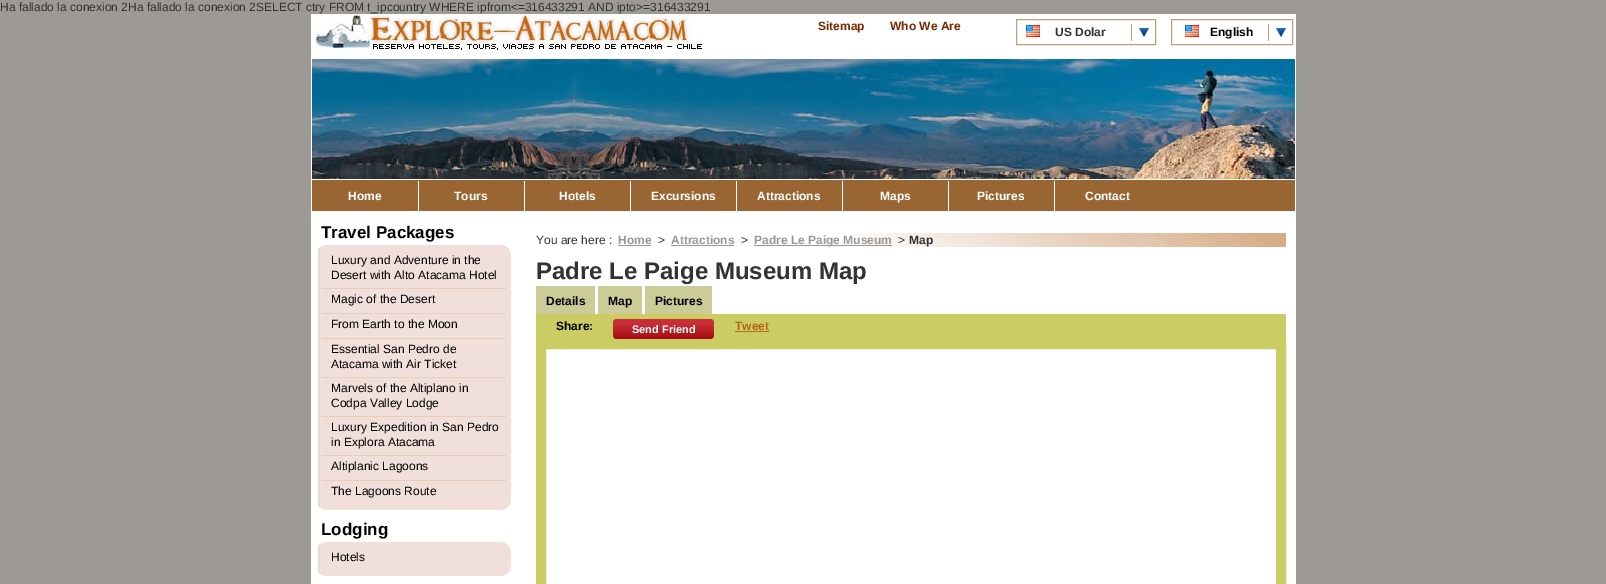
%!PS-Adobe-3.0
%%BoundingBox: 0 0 1606 584
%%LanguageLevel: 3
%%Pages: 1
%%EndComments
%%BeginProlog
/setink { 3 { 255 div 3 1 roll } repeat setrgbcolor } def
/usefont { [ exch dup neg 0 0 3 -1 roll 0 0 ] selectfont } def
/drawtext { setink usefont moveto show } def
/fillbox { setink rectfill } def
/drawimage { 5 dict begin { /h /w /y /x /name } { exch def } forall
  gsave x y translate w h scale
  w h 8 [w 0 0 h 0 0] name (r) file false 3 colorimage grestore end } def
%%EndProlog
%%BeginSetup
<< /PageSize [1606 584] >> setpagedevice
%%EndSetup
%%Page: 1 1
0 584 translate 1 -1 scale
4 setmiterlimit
0 0 1606 584 157 154 149 fillbox
(Ha fallado la conexion 2Ha fallado la conexion 2SELECT ctry FROM t_ipcountry WHERE ipfrom<=316433291 AND ipto>=316433291) 0 11 /LiberationSans-Regular 12 51 51 51 drawtext
311 14 985 570 255 255 255 fillbox
(assets/img1.rgb) 312 59 983 120 drawimage
(assets/img2.rgb) 311 14 391 41 drawimage
(Sitemap) 818 30 /LiberationSans-Bold 12 121 39 1 drawtext
(Who We Are) 890 30 /LiberationSans-Bold 12 121 39 1 drawtext
(assets/img3.rgb) 1131 24 18 17 drawimage
191 158 126 setink
1016.5 19.5 139 25 rectstroke
(assets/img4.rgb) 1026 25 14 12 drawimage
(US Dolar) 1055 36 /LiberationSans-Bold 12 51 51 51 drawtext
(assets/img3.rgb) 1268 24 18 17 drawimage
191 158 126 setink
1171.5 19.5 121 25 rectstroke
(assets/img4.rgb) 1185 25 14 12 drawimage
(English) 1210 36 /LiberationSans-Bold 12 0 0 0 drawtext
312 180 983 31 153 102 51 fillbox
(Home) 348 200 /LiberationSans-Bold 12 255 255 255 drawtext
418 181 1 30 255 255 255 fillbox
(Tours) 454 200 /LiberationSans-Bold 12 255 255 255 drawtext
524 181 1 30 255 255 255 fillbox
(Hotels) 559 200 /LiberationSans-Bold 12 255 255 255 drawtext
630 181 1 30 255 255 255 fillbox
(Excursions) 651 200 /LiberationSans-Bold 12 255 255 255 drawtext
736 181 1 30 255 255 255 fillbox
(Attractions) 757 200 /LiberationSans-Bold 12 255 255 255 drawtext
842 181 1 30 255 255 255 fillbox
(Maps) 880 200 /LiberationSans-Bold 12 255 255 255 drawtext
948 181 1 30 255 255 255 fillbox
(Pictures) 977 200 /LiberationSans-Bold 12 255 255 255 drawtext
1054 181 1 30 255 255 255 fillbox
(Contact) 1085 200 /LiberationSans-Bold 12 255 255 255 drawtext
(Travel Packages) 321 238 /LiberationSans-Bold 17 0 0 0 drawtext
(assets/img5.rgb) 317 245 194 265 drawimage
(Luxury and Adventure in the) 331 264 /LiberationSans-Regular 12 0 0 0 drawtext
(Desert with Alto Atacama Hotel) 331 279 /LiberationSans-Regular 12 0 0 0 drawtext
321 288 185 1 231 206 184 fillbox
(Magic of the Desert) 331 303 /LiberationSans-Regular 12 0 0 0 drawtext
321 313 185 1 231 206 184 fillbox
(From Earth to the Moon) 331 328 /LiberationSans-Regular 12 0 0 0 drawtext
321 338 185 1 231 206 184 fillbox
(Essential San Pedro de) 331 353 /LiberationSans-Regular 12 0 0 0 drawtext
(Atacama with Air Ticket) 331 368 /LiberationSans-Regular 12 0 0 0 drawtext
321 377 185 1 231 206 184 fillbox
(Marvels of the Altiplano in) 331 392 /LiberationSans-Regular 12 0 0 0 drawtext
(Codpa Valley Lodge) 331 407 /LiberationSans-Regular 12 0 0 0 drawtext
321 416 185 1 231 206 184 fillbox
(Luxury Expedition in San Pedro) 331 431 /LiberationSans-Regular 12 0 0 0 drawtext
(in Explora Atacama) 331 446 /LiberationSans-Regular 12 0 0 0 drawtext
321 455 185 1 231 206 184 fillbox
(Altiplanic Lagoons) 331 470 /LiberationSans-Regular 12 0 0 0 drawtext
321 480 185 1 231 206 184 fillbox
(The Lagoons Route) 331 495 /LiberationSans-Regular 12 0 0 0 drawtext
(Lodging) 321 535 /LiberationSans-Bold 17 0 0 0 drawtext
(assets/img6.rgb) 317 542 194 34 drawimage
(Hotels) 331 561 /LiberationSans-Regular 12 0 0 0 drawtext
(assets/img7.rgb) 850 233 436 14 drawimage
(You are here :) 536 244 /LiberationSans-Regular 12 51 51 51 drawtext
(Home) 618 244 /LiberationSans-Bold 12 153 153 153 drawtext
618 245 33 1 153 153 153 fillbox
(>) 658 244 /LiberationSans-Regular 12 51 51 51 drawtext
(Attractions) 671 244 /LiberationSans-Bold 12 153 153 153 drawtext
671 245 63 1 153 153 153 fillbox
(>) 741 244 /LiberationSans-Regular 12 51 51 51 drawtext
754 245 138 1 153 153 153 fillbox
(Padre Le Paige Museum) 754 244 /LiberationSans-Bold 12 153 153 153 drawtext
(>) 898 244 /LiberationSans-Regular 12 51 51 51 drawtext
(Map) 909 244 /LiberationSans-Bold 12 51 51 51 drawtext
(Padre Le Paige Museum Map) 536 279 /LiberationSans-Bold 24 51 51 51 drawtext
536 286 59 28 204 204 153 fillbox
(Details) 546 305 /LiberationSans-Bold 12 0 0 0 drawtext
598 286 44 28 204 204 153 fillbox
(Map) 608 305 /LiberationSans-Bold 12 0 0 0 drawtext
645 286 67 28 204 204 153 fillbox
(Pictures) 655 305 /LiberationSans-Bold 12 0 0 0 drawtext
536 314 750 25 204 204 100 fillbox
(Share:) 556 330 /LiberationSans-Bold 12 0 0 0 drawtext
(assets/img8.rgb) 613 319 101 20 drawimage
(Send Friend) 632 333 /LiberationSans-Bold 11 255 255 255 drawtext
(Tweet) 735 330 /LiberationSans-Bold 12 182 106 20 drawtext
735 331 34 1 182 106 20 fillbox
204 204 100 setink
5 setlinewidth
538.5 341.5 745 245 rectstroke
543.5 346.5 735 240 rectstroke
showpage
%%EOF
